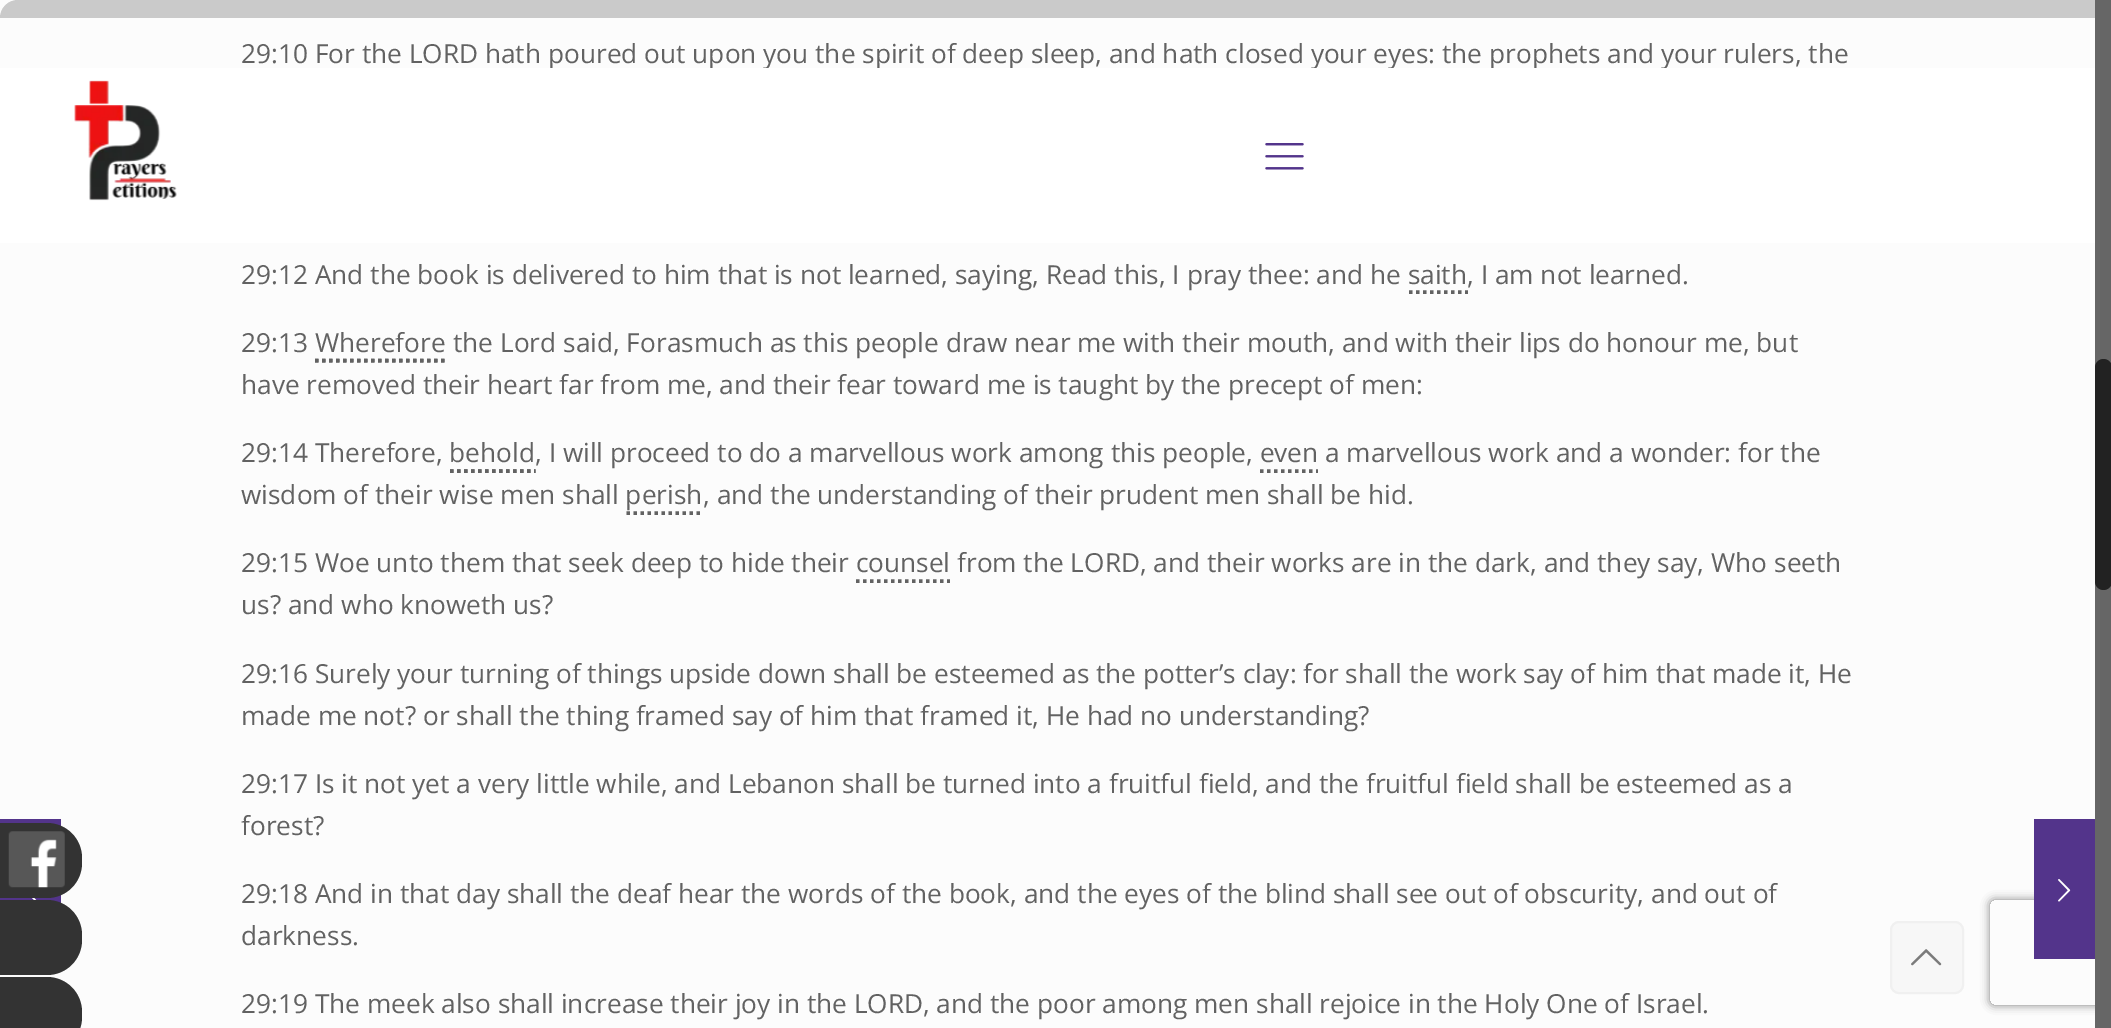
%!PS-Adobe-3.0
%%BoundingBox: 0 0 2111 1028
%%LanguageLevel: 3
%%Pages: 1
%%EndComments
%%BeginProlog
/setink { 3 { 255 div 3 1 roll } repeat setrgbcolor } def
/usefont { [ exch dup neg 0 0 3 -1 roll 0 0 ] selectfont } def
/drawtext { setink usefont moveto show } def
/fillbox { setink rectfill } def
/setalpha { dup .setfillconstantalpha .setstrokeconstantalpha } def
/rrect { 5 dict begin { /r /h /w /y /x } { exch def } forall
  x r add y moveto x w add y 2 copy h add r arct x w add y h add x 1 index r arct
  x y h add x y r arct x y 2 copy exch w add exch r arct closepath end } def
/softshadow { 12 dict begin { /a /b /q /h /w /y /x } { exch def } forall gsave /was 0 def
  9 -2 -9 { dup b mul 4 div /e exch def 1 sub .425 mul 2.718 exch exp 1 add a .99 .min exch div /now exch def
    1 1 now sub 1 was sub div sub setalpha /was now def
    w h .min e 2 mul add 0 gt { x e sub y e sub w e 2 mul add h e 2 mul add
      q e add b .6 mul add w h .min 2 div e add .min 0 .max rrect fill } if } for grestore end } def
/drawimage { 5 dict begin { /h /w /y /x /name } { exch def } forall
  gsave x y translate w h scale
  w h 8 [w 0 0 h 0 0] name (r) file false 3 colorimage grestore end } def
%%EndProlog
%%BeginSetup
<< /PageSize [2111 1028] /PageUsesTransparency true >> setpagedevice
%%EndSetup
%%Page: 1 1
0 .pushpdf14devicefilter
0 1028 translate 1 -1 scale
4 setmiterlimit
0 0 2111 1028 252 252 252 fillbox
0 819 61 84 83 52 139 fillbox
(assets/img1.rgb) 32 898 5 2 drawimage
202 202 202 setink
18 0 moveto 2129 0 lineto 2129 10 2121 18 2111 18 curveto 0 18 lineto 0 8 8 0 18 0 curveto closepath fill
(poured out upon you the spirit of deep sleep, and hath closed your eyes: the prophets and your rulers, the) 548 63 /OpenSans-Regular 26.25 98 98 98 drawtext
0 68 2095 175 255 255 255 fillbox
(assets/img2.rgb) 74 80 103 121 drawimage
(assets/img3.rgb) 1265 143 39 27 drawimage
51 51 51 setink
-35 823 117 75 35 rrect fill
(assets/img4.rgb) 8 831 57 57 drawimage
-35 900 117 75 35 rrect fill
-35 977 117 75 35 rrect fill
(29:10 For the LORD hath) 241 63 /OpenSans-Regular 26.25 98 98 98 drawtext
(29:12 And the book is delivered to him that is not learned, saying, Read this, I pray thee: and he saith) 241 284 /OpenSans-Regular 26.25 98 98 98 drawtext
(, I am not learned.) 1467 284 /OpenSans-Regular 26.25 98 98 98 drawtext
3.5 setlinewidth
[3.5 3.5] 0 setdash
1409 292 moveto 1468 292 lineto stroke
(29:13 Wherefore) 241 352 /OpenSans-Regular 26.25 98 98 98 drawtext
(the Lord said, Forasmuch as this people draw near me with their mouth, and with their lips do honour me, but) 453 352 /OpenSans-Regular 26.25 98 98 98 drawtext
315 360.5 moveto 446 360.5 lineto stroke
315 360.5 moveto 446 360.5 lineto stroke
(have removed their heart far from me, and their fear toward me is taught by the precept of men:) 241 394 /OpenSans-Regular 26.25 98 98 98 drawtext
(29:14 Therefore, behold) 241 462 /OpenSans-Regular 26.25 98 98 98 drawtext
(, I will proceed to do a marvellous work among this people, even) 535 462 /OpenSans-Regular 26.25 98 98 98 drawtext
(a marvellous work and a wonder: for the) 1325 462 /OpenSans-Regular 26.25 98 98 98 drawtext
450 471 moveto 535.5 471 lineto stroke
450 471 moveto 535.5 471 lineto stroke
1260 471 moveto 1318 471 lineto stroke
(wisdom of their wise men shall perish) 241 504 /OpenSans-Regular 26.25 98 98 98 drawtext
(, and the understanding of their prudent men shall be hid.) 703 504 /OpenSans-Regular 26.25 98 98 98 drawtext
626.5 513 moveto 703.5 513 lineto stroke
(29:15 Woe unto them that seek deep to hide their counsel) 241 572 /OpenSans-Regular 26.25 98 98 98 drawtext
(from the LORD, and their works are in the dark, and they say, Who seeth) 957 572 /OpenSans-Regular 26.25 98 98 98 drawtext
856 581 moveto 950 581 lineto stroke
(us? and who knoweth us?) 241 614 /OpenSans-Regular 26.25 98 98 98 drawtext
(29:16 Surely your turning of things upside down shall be esteemed as the potter’s clay: for shall the work say of him that made it, He) 241 683 /OpenSans-Regular 26.25 98 98 98 drawtext
(made me not? or shall the thing framed say of him that framed it, He had no understanding?) 241 725 /OpenSans-Regular 26.25 98 98 98 drawtext
(29:17 Is it not yet a very little while, and Lebanon shall be turned into a fruitful field, and the fruitful field shall be esteemed as a) 241 793 /OpenSans-Regular 26.25 98 98 98 drawtext
(forest?) 241 835 /OpenSans-Regular 26.25 98 98 98 drawtext
(29:18 And in that day shall the deaf hear the words of the book, and the eyes of the blind shall see out of obscurity, and out of) 241 903 /OpenSans-Regular 26.25 98 98 98 drawtext
(darkness.) 241 945 /OpenSans-Regular 26.25 98 98 98 drawtext
(29:19 The meek also shall increase their joy in the LORD, and the poor among men shall rejoice in the Holy One of Israel.) 241 1013 /OpenSans-Regular 26.25 98 98 98 drawtext
gsave
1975 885 moveto 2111 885 lineto 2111 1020 lineto 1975 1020 lineto closepath 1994 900 moveto 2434 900 lineto 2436 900 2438 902 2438 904 curveto 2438 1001 lineto 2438 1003 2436 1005 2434 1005 curveto 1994 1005 lineto 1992 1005 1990 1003 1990 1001 curveto 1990 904 lineto 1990 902 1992 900 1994 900 curveto closepath eoclip newpath
128 128 128 setink
1990 900 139 105 4 4.5 1 softshadow
grestore
2034 819 61 140 83 52 139 fillbox
(assets/img5.rgb) 2058 879 13 23 drawimage
2095 0 16 1028 102 102 102 fillbox
34 34 34 setink
2095 359 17 231 8.5 rrect fill
247 247 247 setink
1891 922 72 71 8 rrect gsave fill grestore
240 240 240 setink
2 setlinewidth
[] 0 setdash
stroke
(assets/img6.rgb) 1911 949 31 17 drawimage
.poppdf14devicefilter showpage
%%EOF
